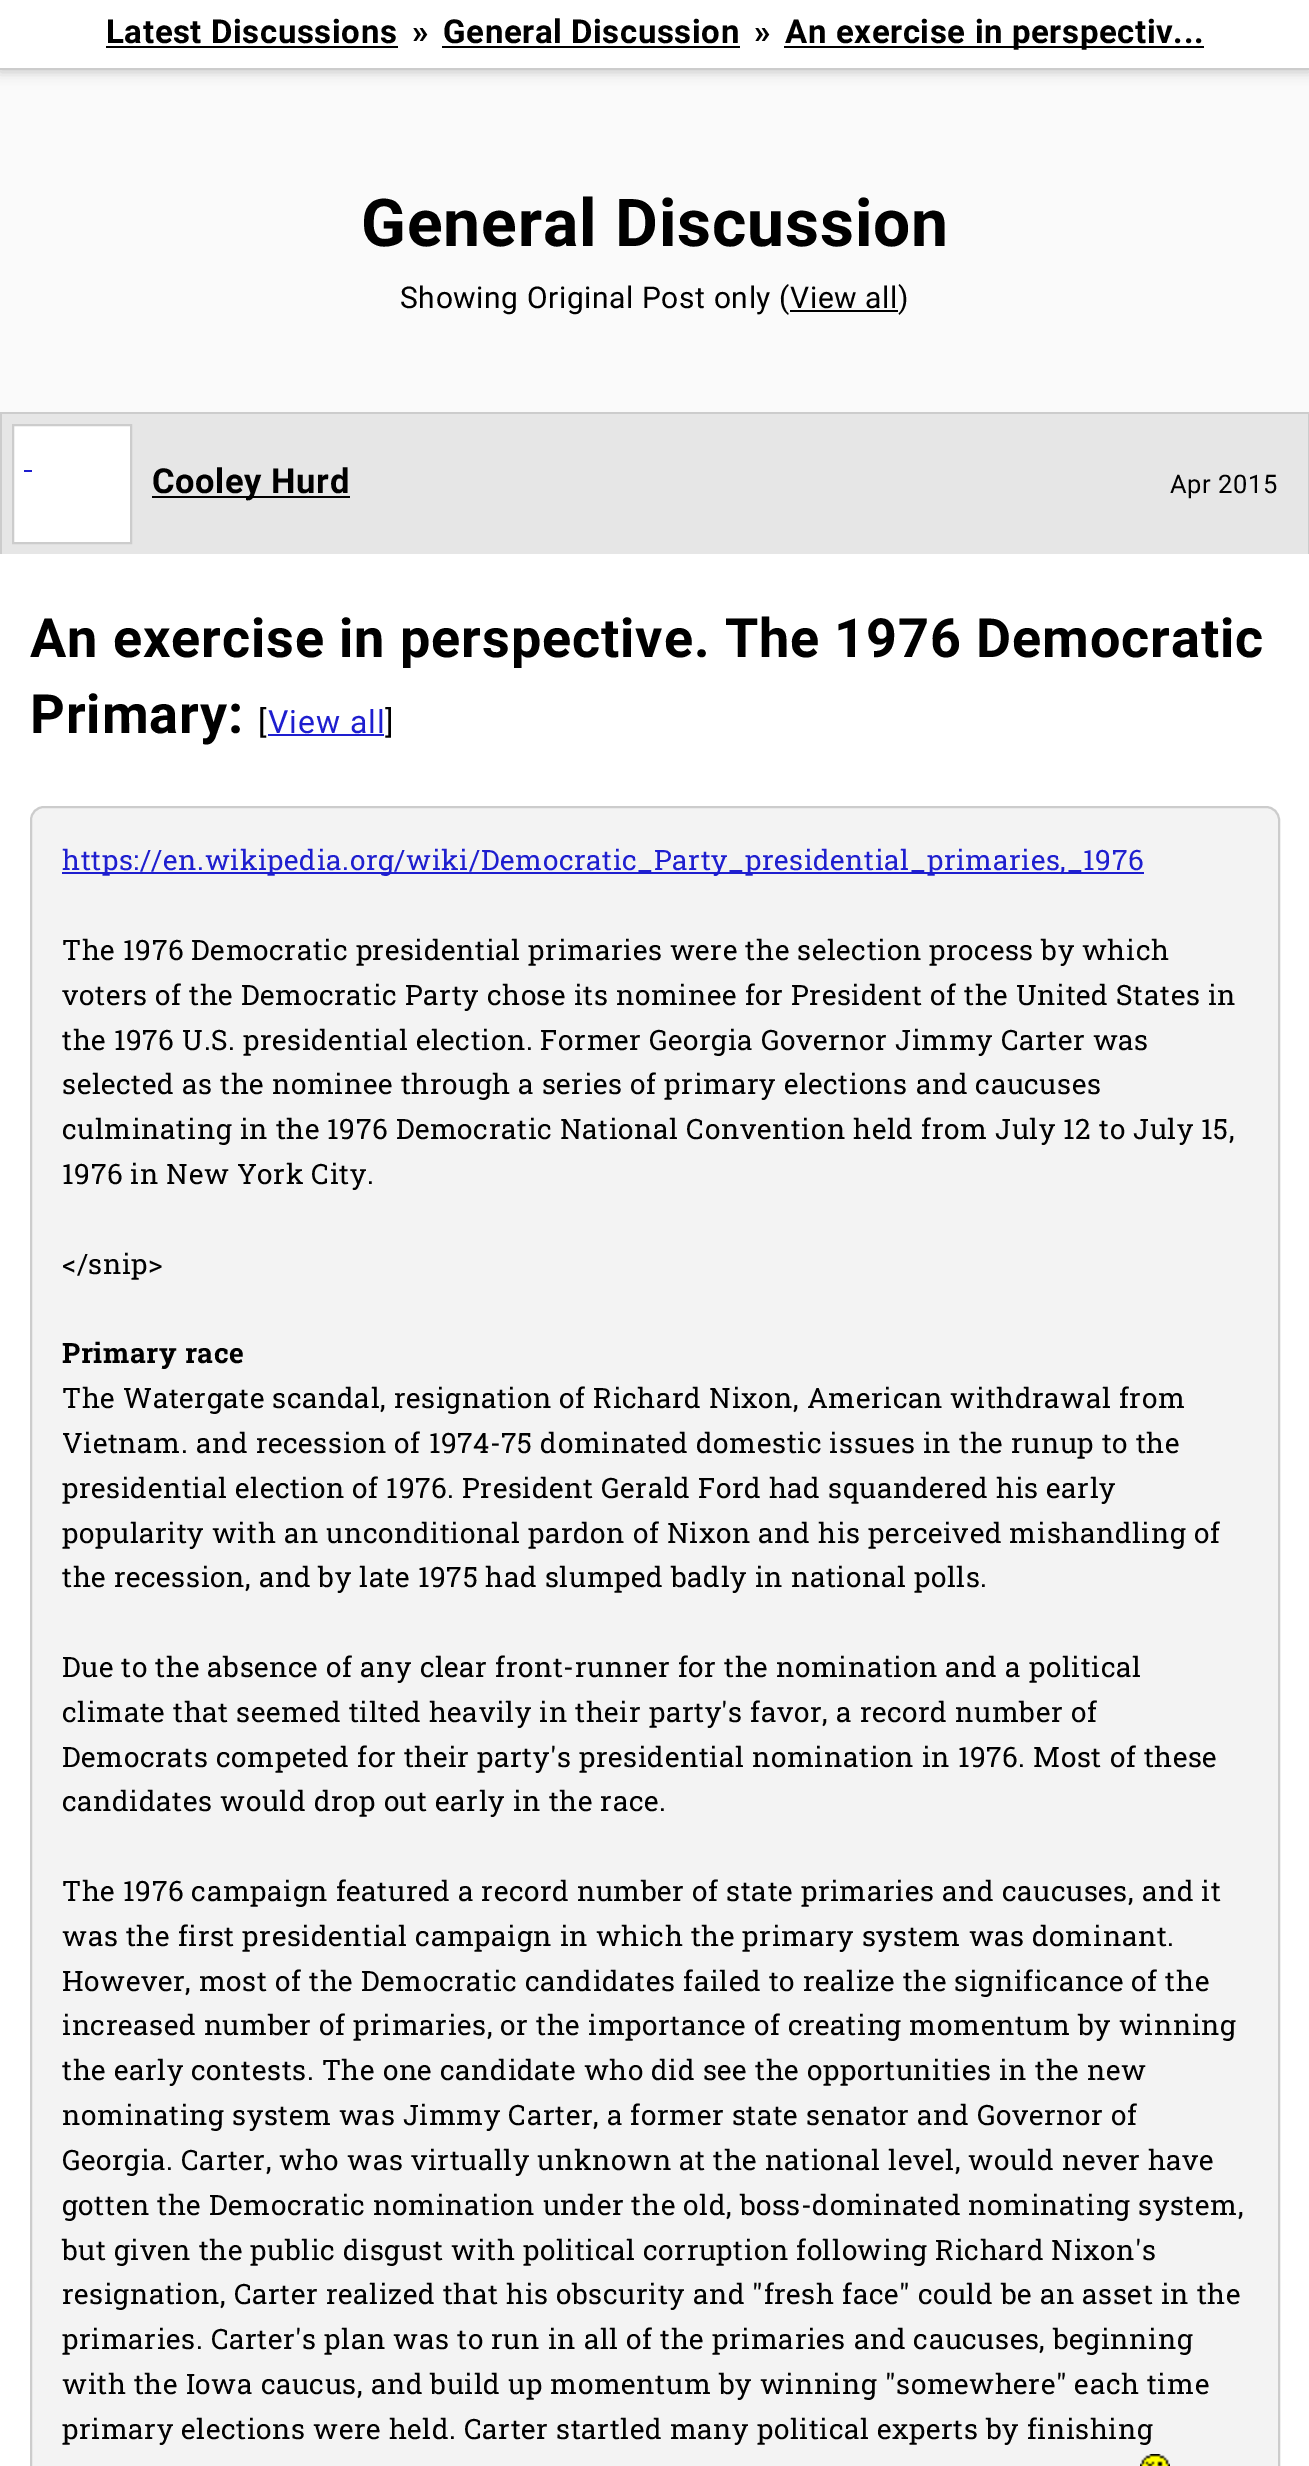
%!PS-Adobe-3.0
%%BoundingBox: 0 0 1309 2466
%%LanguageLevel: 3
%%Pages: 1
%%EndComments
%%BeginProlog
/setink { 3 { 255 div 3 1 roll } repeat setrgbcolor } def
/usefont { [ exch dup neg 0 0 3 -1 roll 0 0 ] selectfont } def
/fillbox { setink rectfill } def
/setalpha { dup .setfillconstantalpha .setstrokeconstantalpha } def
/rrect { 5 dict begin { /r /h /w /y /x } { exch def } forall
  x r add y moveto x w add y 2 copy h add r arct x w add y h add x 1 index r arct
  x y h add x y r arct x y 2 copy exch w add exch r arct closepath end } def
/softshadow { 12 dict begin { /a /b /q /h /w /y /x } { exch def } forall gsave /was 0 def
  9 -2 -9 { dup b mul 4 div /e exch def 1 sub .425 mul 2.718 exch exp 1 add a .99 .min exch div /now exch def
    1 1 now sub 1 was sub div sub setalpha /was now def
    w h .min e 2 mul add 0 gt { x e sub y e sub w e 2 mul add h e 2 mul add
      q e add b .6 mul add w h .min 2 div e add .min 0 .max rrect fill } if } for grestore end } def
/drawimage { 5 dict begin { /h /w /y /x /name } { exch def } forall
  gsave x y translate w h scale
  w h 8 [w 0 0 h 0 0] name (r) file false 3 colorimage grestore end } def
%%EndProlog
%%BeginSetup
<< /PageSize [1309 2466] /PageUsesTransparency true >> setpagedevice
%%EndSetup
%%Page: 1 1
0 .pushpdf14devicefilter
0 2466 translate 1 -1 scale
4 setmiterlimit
0 0 1309 2466 250 250 250 fillbox
0 0 0 setink
0 2 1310 70 0 6 0.2 softshadow
0 0 1309 68 255 255 255 fillbox
0 68 1309 2 204 204 204 fillbox
/Roboto-Bold 33 usefont
0 0 0 setink
106 43 moveto 0.6 0 (Latest Discussions) ashow
106 46 292 2 0 0 0 fillbox
412 43 moveto 0.6 0 (») ashow
443 43 moveto 0.6 0 (General Discussion) ashow
442 46 298 2 0 0 0 fillbox
754 43 moveto 0.6 0 (») ashow
784 46 420 2 0 0 0 fillbox
785 43 moveto 0.6 0 (An exercise in perspectiv...) ashow
/Roboto-Bold 66 usefont
361 246 moveto 0.9 0 (General Discussion) ashow
/Roboto-Regular 30 usefont
400 308 moveto 0.6 0 (Showing Original Post only \(View all\)) ashow
790 310 108 2 0 0 0 fillbox
2 414 1306 140 230 230 230 fillbox
0 412 1309 2 204 204 204 fillbox
1308 412 1 142 204 204 204 fillbox
0 412 2 142 204 204 204 fillbox
255 255 255 setink
13 425 moveto 131 425 lineto 131 543 lineto 13 543 lineto closepath gsave fill grestore
204 204 204 setink
2 setlinewidth
stroke
24 470 8 2 30 30 207 fillbox
152 496 198 2 0 0 0 fillbox
/Roboto-Bold 34.5 usefont
152 493 moveto 0.6 0 (Cooley Hurd) ashow
/Roboto-Regular 25.5 usefont
1170 493 moveto 0.6 0 (Apr 2015) ashow
0 554 1309 1912 255 255 255 fillbox
/Roboto-Bold 54 usefont
0 0 0 setink
30 657 moveto 0.9 0 (An exercise in perspective. The 1976 Democratic) ashow
30 733 moveto 0.9 0 (Primary:) ashow
/Roboto-Regular 32 usefont
258 733 moveto 0.9 0 ([) ashow
30 30 207 setink
268 733 moveto 0.9 0 (View all) ashow
0 0 0 setink
385 733 moveto 0.9 0 (]) ashow
268 734 116 2 30 30 207 fillbox
243 243 243 setink
31 807 1248 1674 13 rrect gsave fill grestore
204 204 204 setink
stroke
62 872 1082 2 30 30 207 fillbox
/RobotoSlab-Regular 28 usefont
62 870 moveto 0.6 0 (https://en.wikipedia.org/wiki/Democratic_Party_presidential_primaries,_1976) ashow
0 0 0 setink
62 960 moveto 0.6 0 (The 1976 Democratic presidential primaries were the selection process by which) ashow
62 1005 moveto 0.6 0 (voters of the Democratic Party chose its nominee for President of the United States in) ashow
62 1050 moveto 0.6 0 (the 1976 U.S. presidential election. Former Georgia Governor Jimmy Carter was) ashow
62 1094 moveto 0.6 0 (selected as the nominee through a series of primary elections and caucuses) ashow
62 1139 moveto 0.6 0 (culminating in the 1976 Democratic National Convention held from July 12 to July 15,) ashow
62 1184 moveto 0.6 0 (1976 in New York City.) ashow
62 1274 moveto 0.6 0 (</snip>) ashow
/RobotoSlab-Bold 28 usefont
62 1363 moveto 0.6 0 (Primary race) ashow
/RobotoSlab-Regular 28 usefont
62 1408 moveto 0.6 0 (The Watergate scandal, resignation of Richard Nixon, American withdrawal from) ashow
62 1453 moveto 0.6 0 (Vietnam. and recession of 1974-75 dominated domestic issues in the runup to the) ashow
62 1498 moveto 0.6 0 (presidential election of 1976. President Gerald Ford had squandered his early) ashow
62 1543 moveto 0.6 0 (popularity with an unconditional pardon of Nixon and his perceived mishandling of) ashow
62 1587 moveto 0.6 0 (the recession, and by late 1975 had slumped badly in national polls.) ashow
62 1677 moveto 0.6 0 (Due to the absence of any clear front-runner for the nomination and a political) ashow
62 1722 moveto 0.6 0 (climate that seemed tilted heavily in their party's favor, a record number of) ashow
62 1767 moveto 0.6 0 (Democrats competed for their party's presidential nomination in 1976. Most of these) ashow
62 1811 moveto 0.6 0 (candidates would drop out early in the race.) ashow
62 1901 moveto 0.6 0 (The 1976 campaign featured a record number of state primaries and caucuses, and it) ashow
62 1946 moveto 0.6 0 (was the first presidential campaign in which the primary system was dominant.) ashow
62 1991 moveto 0.6 0 (However, most of the Democratic candidates failed to realize the significance of the) ashow
62 2035 moveto 0.6 0 (increased number of primaries, or the importance of creating momentum by winning) ashow
62 2080 moveto 0.6 0 (the early contests. The one candidate who did see the opportunities in the new) ashow
62 2125 moveto 0.6 0 (nominating system was Jimmy Carter, a former state senator and Governor of) ashow
62 2170 moveto 0.6 0 (Georgia. Carter, who was virtually unknown at the national level, would never have) ashow
62 2215 moveto 0.6 0 (gotten the Democratic nomination under the old, boss-dominated nominating system,) ashow
62 2260 moveto 0.6 0 (but given the public disgust with political corruption following Richard Nixon's) ashow
62 2304 moveto 0.6 0 (resignation, Carter realized that his obscurity and "fresh face" could be an asset in the) ashow
62 2349 moveto 0.6 0 (primaries. Carter's plan was to run in all of the primaries and caucuses, beginning) ashow
62 2394 moveto 0.6 0 (with the Iowa caucus, and build up momentum by winning "somewhere" each time) ashow
62 2439 moveto 0.6 0 (primary elections were held. Carter startled many political experts by finishing) ashow
(assets/img1.rgb) 1140 2454 30 12 drawimage
.poppdf14devicefilter showpage
%%EOF
